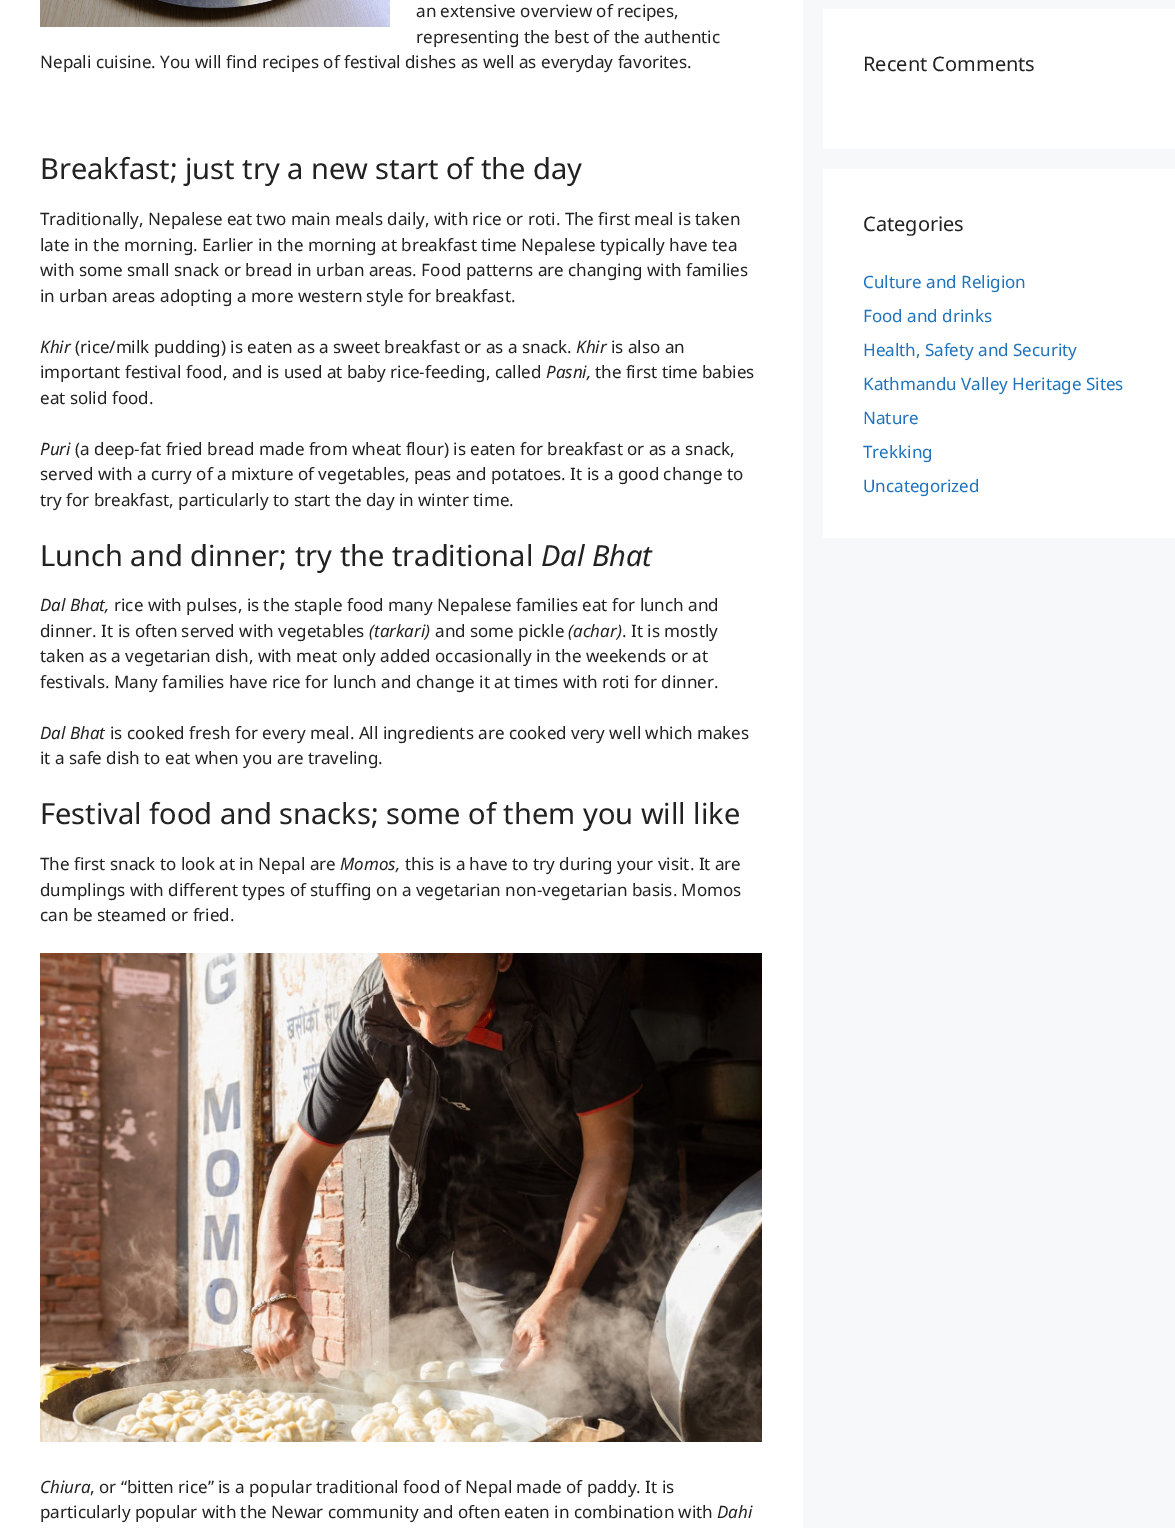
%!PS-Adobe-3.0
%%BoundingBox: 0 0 1175 1528
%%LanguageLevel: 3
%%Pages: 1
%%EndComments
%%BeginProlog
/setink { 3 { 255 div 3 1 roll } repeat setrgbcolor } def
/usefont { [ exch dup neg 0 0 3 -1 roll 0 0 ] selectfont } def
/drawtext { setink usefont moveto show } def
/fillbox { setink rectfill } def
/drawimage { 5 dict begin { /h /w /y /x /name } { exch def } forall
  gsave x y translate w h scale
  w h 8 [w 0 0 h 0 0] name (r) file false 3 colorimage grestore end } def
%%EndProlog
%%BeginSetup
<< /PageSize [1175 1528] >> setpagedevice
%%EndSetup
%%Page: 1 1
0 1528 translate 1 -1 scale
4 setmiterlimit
0 0 1175 1528 247 248 249 fillbox
0 0 803 1528 255 255 255 fillbox
(assets/img1.rgb) 40 0 350 27 drawimage
(an extensive overview of recipes,) 416 17 /NotoSans-Regular 17 34 34 34 drawtext
(representing the best of the authentic) 416 43 /NotoSans-Regular 17 34 34 34 drawtext
(Nepali cuisine. You will find recipes of festival dishes as well as everyday favorites.) 40 68 /NotoSans-Regular 17 34 34 34 drawtext
(Breakfast; just try a new start of the day) 40 179 /NotoSans-Regular 29 34 34 34 drawtext
(Traditionally, Nepalese eat two main meals daily, with rice or roti. The first meal is taken) 40 225 /NotoSans-Regular 17 34 34 34 drawtext
(late in the morning. Earlier in the morning at breakfast time Nepalese typically have tea) 40 251 /NotoSans-Regular 17 34 34 34 drawtext
(with some small snack or bread in urban areas. Food patterns are changing with families) 40 276 /NotoSans-Regular 17 34 34 34 drawtext
(in urban areas adopting a more western style for breakfast.) 40 302 /NotoSans-Regular 17 34 34 34 drawtext
(Khir) 40 353 /NotoSans-Italic 17 34 34 34 drawtext
(\(rice/milk pudding\) is eaten as a sweet breakfast or as a snack.) 75 353 /NotoSans-Regular 17 34 34 34 drawtext
(Khir) 576 353 /NotoSans-Italic 17 34 34 34 drawtext
(is also an) 611 353 /NotoSans-Regular 17 34 34 34 drawtext
(important festival food, and is used at baby rice-feeding, called) 40 378 /NotoSans-Regular 17 34 34 34 drawtext
(Pasni,) 546 378 /NotoSans-Italic 17 34 34 34 drawtext
(the first time babies) 595 378 /NotoSans-Regular 17 34 34 34 drawtext
(eat solid food.) 40 404 /NotoSans-Regular 17 34 34 34 drawtext
(Puri) 40 455 /NotoSans-Italic 17 34 34 34 drawtext
(\(a deep-fat fried bread made from wheat flour\) is eaten for breakfast or as a snack,) 75 455 /NotoSans-Regular 17 34 34 34 drawtext
(served with a curry of a mixture of vegetables, peas and potatoes. It is a good change to) 40 480 /NotoSans-Regular 17 34 34 34 drawtext
(try for breakfast, particularly to start the day in winter time.) 40 506 /NotoSans-Regular 17 34 34 34 drawtext
(Lunch and dinner; try the traditional) 40 566 /NotoSans-Regular 29 34 34 34 drawtext
(Dal Bhat) 541 566 /NotoSans-Italic 29 34 34 34 drawtext
(Dal Bhat,) 40 611 /NotoSans-Italic 17 34 34 34 drawtext
(rice with pulses, is the staple food many Nepalese families eat for lunch and) 114 611 /NotoSans-Regular 17 34 34 34 drawtext
(dinner. It is often served with vegetables) 40 637 /NotoSans-Regular 17 34 34 34 drawtext
(\(tarkari\)) 369 637 /NotoSans-Italic 17 34 34 34 drawtext
(and some pickle) 435 637 /NotoSans-Regular 17 34 34 34 drawtext
(\(achar\)) 568 637 /NotoSans-Italic 17 34 34 34 drawtext
(. It is mostly) 622 637 /NotoSans-Regular 17 34 34 34 drawtext
(taken as a vegetarian dish, with meat only added occasionally in the weekends or at) 40 662 /NotoSans-Regular 17 34 34 34 drawtext
(festivals. Many families have rice for lunch and change it at times with roti for dinner.) 40 688 /NotoSans-Regular 17 34 34 34 drawtext
(Dal Bhat) 40 739 /NotoSans-Italic 17 34 34 34 drawtext
(is cooked fresh for every meal. All ingredients are cooked very well which makes) 110 739 /NotoSans-Regular 17 34 34 34 drawtext
(it a safe dish to eat when you are traveling.) 40 764 /NotoSans-Regular 17 34 34 34 drawtext
(Festival food and snacks; some of them you will like) 40 824 /NotoSans-Regular 29 34 34 34 drawtext
(The first snack to look at in Nepal are) 40 870 /NotoSans-Regular 17 34 34 34 drawtext
(Momos,) 340 870 /NotoSans-Italic 17 34 34 34 drawtext
(this is a have to try during your visit. It are) 405 870 /NotoSans-Regular 17 34 34 34 drawtext
(dumplings with different types of stuffing on a vegetarian non-vegetarian basis. Momos) 40 896 /NotoSans-Regular 17 34 34 34 drawtext
(can be steamed or fried.) 40 921 /NotoSans-Regular 17 34 34 34 drawtext
(assets/img2.rgb) 40 953 722 489 drawimage
(Chiura) 40 1493 /NotoSans-Italic 17 34 34 34 drawtext
(, or “bitten rice” is a popular traditional food of Nepal made of paddy. It is) 90 1493 /NotoSans-Regular 17 34 34 34 drawtext
(particularly popular with the Newar community and often eaten in combination with) 40 1518 /NotoSans-Regular 17 34 34 34 drawtext
(Dahi) 717 1518 /NotoSans-Italic 17 34 34 34 drawtext
823 9 352 140 255 255 255 fillbox
(Recent Comments) 863 71 /NotoSans-Regular 20 34 34 34 drawtext
823 169 352 369 255 255 255 fillbox
(Categories) 863 231 /NotoSans-Regular 20 34 34 34 drawtext
(Culture and Religion) 863 288 /NotoSans-Regular 17 30 115 190 drawtext
(Food and drinks) 863 322 /NotoSans-Regular 17 30 115 190 drawtext
(Health, Safety and Security) 863 356 /NotoSans-Regular 17 30 115 190 drawtext
(Kathmandu Valley Heritage Sites) 863 390 /NotoSans-Regular 17 30 115 190 drawtext
(Nature) 863 424 /NotoSans-Regular 17 30 115 190 drawtext
(Trekking) 863 458 /NotoSans-Regular 17 30 115 190 drawtext
(Uncategorized) 863 492 /NotoSans-Regular 17 30 115 190 drawtext
showpage
%%EOF
